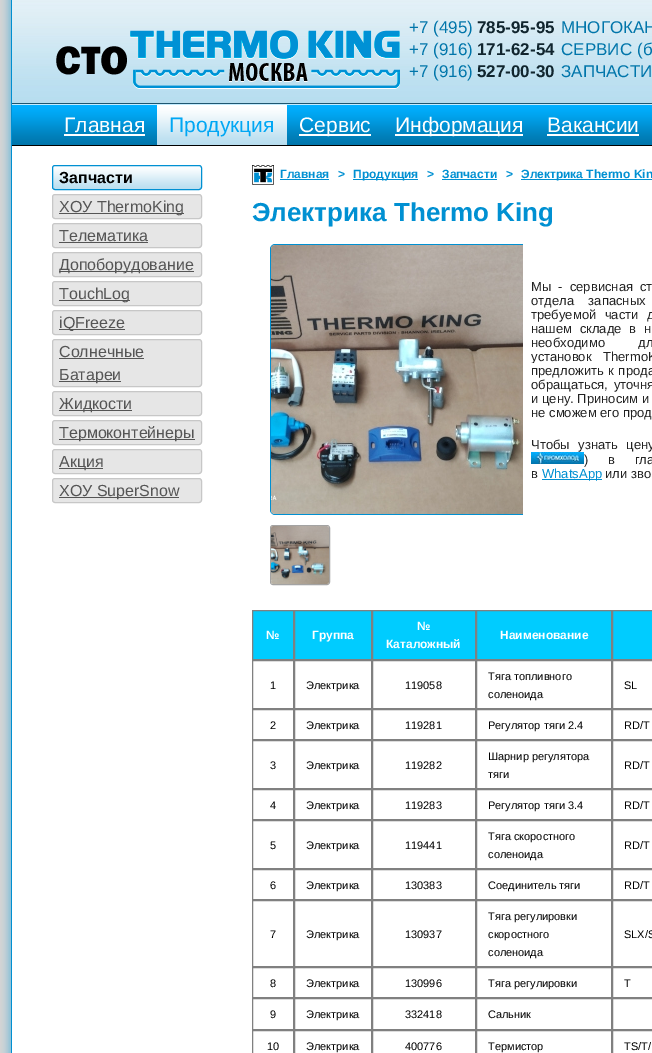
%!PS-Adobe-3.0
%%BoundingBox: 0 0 652 1053
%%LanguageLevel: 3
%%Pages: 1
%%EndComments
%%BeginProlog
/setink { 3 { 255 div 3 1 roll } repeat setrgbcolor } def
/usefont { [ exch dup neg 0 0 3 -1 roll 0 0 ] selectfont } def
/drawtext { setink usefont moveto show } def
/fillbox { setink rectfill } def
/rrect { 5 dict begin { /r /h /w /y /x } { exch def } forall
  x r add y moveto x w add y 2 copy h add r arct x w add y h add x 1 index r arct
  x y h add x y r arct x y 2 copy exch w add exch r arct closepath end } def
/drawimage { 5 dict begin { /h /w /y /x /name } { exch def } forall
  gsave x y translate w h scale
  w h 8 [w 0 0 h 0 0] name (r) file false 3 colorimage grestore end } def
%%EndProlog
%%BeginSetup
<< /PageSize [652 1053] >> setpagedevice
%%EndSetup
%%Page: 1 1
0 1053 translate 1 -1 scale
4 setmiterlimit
0 0 652 1053 255 255 255 fillbox
(assets/img1.rgb) 0 0 12 1053 drawimage
(assets/img2.rgb) 12 0 640 103 drawimage
(assets/img3.rgb) 56 30 344 59 drawimage
(+7 \(495\)) 409 33 /LiberationSans-Regular 17 0 117 170 drawtext
(785-95-95) 477 33 /LiberationSans-Bold 17 17 37 46 drawtext
(МНОГОКАН) 561 33 /LiberationSans-Regular 17 0 117 170 drawtext
(+7 \(916\)) 409 55 /LiberationSans-Regular 17 0 117 170 drawtext
(171-62-54) 477 55 /LiberationSans-Bold 17 17 37 46 drawtext
(СЕРВИС) 561 55 /LiberationSans-Regular 17 0 117 170 drawtext
(\(б) 637 55 /LiberationSans-Regular 17 0 117 170 drawtext
(+7 \(916\)) 409 77 /LiberationSans-Regular 17 0 117 170 drawtext
(527-00-30) 477 77 /LiberationSans-Bold 17 17 37 46 drawtext
(ЗАПЧАСТИ) 561 77 /LiberationSans-Regular 17 0 117 170 drawtext
(assets/img4.rgb) 12 103 640 43 drawimage
(Главная) 64 132 /LiberationSans-Regular 21 255 255 255 drawtext
64 134 81 2 255 255 255 fillbox
(assets/img5.rgb) 157 105 130 40 drawimage
(Продукция) 169 132 /LiberationSans-Regular 21 0 167 244 drawtext
299 134 72 2 255 255 255 fillbox
(Сервис) 299 132 /LiberationSans-Regular 21 255 255 255 drawtext
395 134 128 2 255 255 255 fillbox
(Информация) 395 132 /LiberationSans-Regular 21 255 255 255 drawtext
(Вакансии) 547 132 /LiberationSans-Regular 21 255 255 255 drawtext
547 134 92 2 255 255 255 fillbox
(assets/img6.rgb) 52 165 150 24 drawimage
0 144 210 setink
52.5 165.5 149 24 2.5 rrect stroke
(Запчасти) 59 183 /LiberationSans-Bold 16 0 0 0 drawtext
230 230 230 setink
52.5 194.5 149 24 2.5 rrect gsave fill grestore
199 199 199 setink
stroke
59 213 125 1 85 85 85 fillbox
(ХОУ ThermoKing) 59 212 /LiberationSans-Regular 16 85 85 85 drawtext
230 230 230 setink
52.5 223.5 149 24 2.5 rrect gsave fill grestore
199 199 199 setink
stroke
(Телематика) 59 241 /LiberationSans-Regular 16 85 85 85 drawtext
59 242 89 1 85 85 85 fillbox
230 230 230 setink
52.5 252.5 149 24 2.5 rrect gsave fill grestore
199 199 199 setink
stroke
59 271 135 1 85 85 85 fillbox
(Допоборудование) 59 270 /LiberationSans-Regular 16 85 85 85 drawtext
230 230 230 setink
52.5 281.5 149 24 2.5 rrect gsave fill grestore
199 199 199 setink
stroke
59 300 71 1 85 85 85 fillbox
(TouchLog) 59 299 /LiberationSans-Regular 16 85 85 85 drawtext
230 230 230 setink
52.5 310.5 149 24 2.5 rrect gsave fill grestore
199 199 199 setink
stroke
59 329 66 1 85 85 85 fillbox
(iQFreeze) 59 328 /LiberationSans-Regular 16 85 85 85 drawtext
230 230 230 setink
52.5 339.5 149 47 2.5 rrect gsave fill grestore
199 199 199 setink
stroke
(Солнечные) 59 357 /LiberationSans-Regular 16 85 85 85 drawtext
59 358 85 1 85 85 85 fillbox
59 381 62 1 85 85 85 fillbox
(Батареи) 59 380 /LiberationSans-Regular 16 85 85 85 drawtext
230 230 230 setink
52.5 391.5 149 24 2.5 rrect gsave fill grestore
199 199 199 setink
stroke
59 410 73 1 85 85 85 fillbox
(Жидкости) 59 409 /LiberationSans-Regular 16 85 85 85 drawtext
230 230 230 setink
52.5 420.5 149 24 2.5 rrect gsave fill grestore
199 199 199 setink
stroke
59 439 136 1 85 85 85 fillbox
(Термоконтейнеры) 59 438 /LiberationSans-Regular 16 85 85 85 drawtext
230 230 230 setink
52.5 449.5 149 24 2.5 rrect gsave fill grestore
199 199 199 setink
stroke
59 468 44 1 85 85 85 fillbox
(Акция) 59 467 /LiberationSans-Regular 16 85 85 85 drawtext
230 230 230 setink
52.5 478.5 149 24 2.5 rrect gsave fill grestore
199 199 199 setink
stroke
59 497 120 1 85 85 85 fillbox
(ХОУ SuperSnow) 59 496 /LiberationSans-Regular 16 85 85 85 drawtext
(assets/img7.rgb) 252 165 22 20 drawimage
(Главная) 280 178 /LiberationSans-Bold 12 0 144 210 drawtext
280 179 49 1 0 144 210 fillbox
(>) 338 178 /LiberationSans-Bold 12 0 144 210 drawtext
353 179 65 1 0 144 210 fillbox
(Продукция) 353 178 /LiberationSans-Bold 12 0 144 210 drawtext
(>) 427 178 /LiberationSans-Bold 12 0 144 210 drawtext
(Запчасти) 442 178 /LiberationSans-Bold 12 0 144 210 drawtext
442 179 55 1 0 144 210 fillbox
(>) 506 178 /LiberationSans-Bold 12 0 144 210 drawtext
521 179 131 1 0 144 210 fillbox
(Электрика Thermo Kin) 521 178 /LiberationSans-Bold 12 0 144 210 drawtext
(Электрика Thermo King) 252 221 /LiberationSans-Bold 26 0 144 210 drawtext
/LiberationSans-Regular 13 usefont
34 34 34 setink
531 291 moveto 3.5 0 32 (Мы - сервисная ст) widthshow
531 305 moveto 11 0 32 (отдела запасных) widthshow
531 319 moveto 5 0 32 (требуемой части д) widthshow
531 333 moveto 4 0 32 (нашем складе в н) widthshow
531 347 moveto 30 0 32 (необходимо дл) widthshow
(установок) 531 361 /LiberationSans-Regular 13 34 34 34 drawtext
531 375 moveto 1 0 32 (предложить к прода) widthshow
531 363 3 1 255 255 255 fillbox
34 34 34 setink
531 389 moveto 2 0 32 (обращаться, уточня) widthshow
(и цену. Приносим и) 531 403 /LiberationSans-Regular 13 34 34 34 drawtext
(не сможем его прод) 531 417 /LiberationSans-Regular 13 34 34 34 drawtext
531 449 moveto 5 0 32 (Чтобы узнать цену) widthshow
(assets/img10.rgb) 531 452 53 12 drawimage
gsave
252 244 271 271 rectclip
0 144 210 setink
270.5 244.5 270 270 4.5 rrect stroke
grestore
(assets/img8.rgb) 271 245 252 269 drawimage
163 163 163 setink
270.5 525.5 59 59 2.5 rrect stroke
(assets/img9.rgb) 271 526 58 58 drawimage
(ThermoK) 603 361 /LiberationSans-Regular 13 34 34 34 drawtext
638 349 9 1 255 255 255 fillbox
(\)) 584 464 /LiberationSans-Regular 13 34 34 34 drawtext
608 464 moveto 16 0 32 (в гла) widthshow
(в) 531 478 /LiberationSans-Regular 13 34 34 34 drawtext
542 479 60 1 0 144 210 fillbox
(WhatsApp) 542 478 /LiberationSans-Regular 13 0 144 210 drawtext
(или зво) 605 478 /LiberationSans-Regular 13 34 34 34 drawtext
0 204 255 setink
252.5 610.5 moveto 293.5 610.5 lineto 293.5 659.5 lineto 252.5 659.5 lineto closepath gsave fill grestore
128 128 128 setink
stroke
(№) 266 639 /LiberationSans-Bold 12 255 255 255 drawtext
0 204 255 setink
294.5 610.5 moveto 371.5 610.5 lineto 371.5 659.5 lineto 294.5 659.5 lineto closepath gsave fill grestore
128 128 128 setink
stroke
(Группа) 312 639 /LiberationSans-Bold 12 255 255 255 drawtext
0 204 255 setink
372.5 610.5 moveto 475.5 610.5 lineto 475.5 659.5 lineto 372.5 659.5 lineto closepath gsave fill grestore
128 128 128 setink
stroke
(№) 417 630 /LiberationSans-Bold 12 255 255 255 drawtext
(Каталожный) 386 648 /LiberationSans-Bold 12 255 255 255 drawtext
0 204 255 setink
476.5 610.5 moveto 611.5 610.5 lineto 611.5 659.5 lineto 476.5 659.5 lineto closepath gsave fill grestore
128 128 128 setink
stroke
(Наименование) 500 639 /LiberationSans-Bold 12 255 255 255 drawtext
0 204 255 setink
612.5 610.5 moveto 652.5 610.5 lineto 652.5 659.5 lineto 612.5 659.5 lineto closepath gsave fill grestore
128 128 128 setink
stroke
252.5 660.5 41 48 rectstroke
(1) 270 689 /LiberationSans-Regular 11 0 0 0 drawtext
128 128 128 setink
294.5 660.5 77 48 rectstroke
(Электрика) 306 689 /LiberationSans-Regular 11 0 0 0 drawtext
128 128 128 setink
372.5 660.5 103 48 rectstroke
(119058) 405 689 /LiberationSans-Regular 11 0 0 0 drawtext
128 128 128 setink
476.5 660.5 135 48 rectstroke
(Тяга топливного) 488 680 /LiberationSans-Regular 11 0 0 0 drawtext
(соленоида) 488 698 /LiberationSans-Regular 11 0 0 0 drawtext
128 128 128 setink
612.5 660.5 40 48 rectstroke
(SL) 624 689 /LiberationSans-Regular 11 0 0 0 drawtext
128 128 128 setink
252.5 709.5 41 30 rectstroke
(2) 270 729 /LiberationSans-Regular 11 0 0 0 drawtext
128 128 128 setink
294.5 709.5 77 30 rectstroke
(Электрика) 306 729 /LiberationSans-Regular 11 0 0 0 drawtext
128 128 128 setink
372.5 709.5 103 30 rectstroke
(119281) 405 729 /LiberationSans-Regular 11 0 0 0 drawtext
128 128 128 setink
476.5 709.5 135 30 rectstroke
(Регулятор тяги 2.4) 488 729 /LiberationSans-Regular 11 0 0 0 drawtext
128 128 128 setink
612.5 709.5 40 30 rectstroke
(RD/T) 624 729 /LiberationSans-Regular 11 0 0 0 drawtext
128 128 128 setink
252.5 740.5 41 48 rectstroke
(3) 270 769 /LiberationSans-Regular 11 0 0 0 drawtext
128 128 128 setink
294.5 740.5 77 48 rectstroke
(Электрика) 306 769 /LiberationSans-Regular 11 0 0 0 drawtext
128 128 128 setink
372.5 740.5 103 48 rectstroke
(119282) 405 769 /LiberationSans-Regular 11 0 0 0 drawtext
128 128 128 setink
476.5 740.5 135 48 rectstroke
(Шарнир регулятора) 488 760 /LiberationSans-Regular 11 0 0 0 drawtext
(тяги) 488 778 /LiberationSans-Regular 11 0 0 0 drawtext
128 128 128 setink
612.5 740.5 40 48 rectstroke
(RD/T) 624 769 /LiberationSans-Regular 11 0 0 0 drawtext
128 128 128 setink
252.5 789.5 41 30 rectstroke
(4) 270 809 /LiberationSans-Regular 11 0 0 0 drawtext
128 128 128 setink
294.5 789.5 77 30 rectstroke
(Электрика) 306 809 /LiberationSans-Regular 11 0 0 0 drawtext
128 128 128 setink
372.5 789.5 103 30 rectstroke
(119283) 405 809 /LiberationSans-Regular 11 0 0 0 drawtext
128 128 128 setink
476.5 789.5 135 30 rectstroke
(Регулятор тяги 3.4) 488 809 /LiberationSans-Regular 11 0 0 0 drawtext
128 128 128 setink
612.5 789.5 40 30 rectstroke
(RD/T) 624 809 /LiberationSans-Regular 11 0 0 0 drawtext
128 128 128 setink
252.5 820.5 41 48 rectstroke
(5) 270 849 /LiberationSans-Regular 11 0 0 0 drawtext
128 128 128 setink
294.5 820.5 77 48 rectstroke
(Электрика) 306 849 /LiberationSans-Regular 11 0 0 0 drawtext
128 128 128 setink
372.5 820.5 103 48 rectstroke
(119441) 405 849 /LiberationSans-Regular 11 0 0 0 drawtext
128 128 128 setink
476.5 820.5 135 48 rectstroke
(Тяга скоростного) 488 840 /LiberationSans-Regular 11 0 0 0 drawtext
(соленоида) 488 858 /LiberationSans-Regular 11 0 0 0 drawtext
128 128 128 setink
612.5 820.5 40 48 rectstroke
(RD/T) 624 849 /LiberationSans-Regular 11 0 0 0 drawtext
128 128 128 setink
252.5 869.5 41 30 rectstroke
(6) 270 889 /LiberationSans-Regular 11 0 0 0 drawtext
128 128 128 setink
294.5 869.5 77 30 rectstroke
(Электрика) 306 889 /LiberationSans-Regular 11 0 0 0 drawtext
128 128 128 setink
372.5 869.5 103 30 rectstroke
(130383) 405 889 /LiberationSans-Regular 11 0 0 0 drawtext
128 128 128 setink
476.5 869.5 135 30 rectstroke
(Соединитель тяги) 488 889 /LiberationSans-Regular 11 0 0 0 drawtext
128 128 128 setink
612.5 869.5 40 30 rectstroke
(RD/T) 624 889 /LiberationSans-Regular 11 0 0 0 drawtext
128 128 128 setink
252.5 900.5 41 66 rectstroke
(7) 270 938 /LiberationSans-Regular 11 0 0 0 drawtext
128 128 128 setink
294.5 900.5 77 66 rectstroke
(Электрика) 306 938 /LiberationSans-Regular 11 0 0 0 drawtext
128 128 128 setink
372.5 900.5 103 66 rectstroke
(130937) 405 938 /LiberationSans-Regular 11 0 0 0 drawtext
128 128 128 setink
476.5 900.5 135 66 rectstroke
(Тяга регулировки) 488 920 /LiberationSans-Regular 11 0 0 0 drawtext
(скоростного) 488 938 /LiberationSans-Regular 11 0 0 0 drawtext
(соленоида) 488 956 /LiberationSans-Regular 11 0 0 0 drawtext
128 128 128 setink
612.5 900.5 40 66 rectstroke
(SLX/S) 624 938 /LiberationSans-Regular 11 0 0 0 drawtext
128 128 128 setink
252.5 967.5 41 30 rectstroke
(8) 270 987 /LiberationSans-Regular 11 0 0 0 drawtext
128 128 128 setink
294.5 967.5 77 30 rectstroke
(Электрика) 306 987 /LiberationSans-Regular 11 0 0 0 drawtext
128 128 128 setink
372.5 967.5 103 30 rectstroke
(130996) 405 987 /LiberationSans-Regular 11 0 0 0 drawtext
128 128 128 setink
476.5 967.5 135 30 rectstroke
(Тяга регулировки) 488 987 /LiberationSans-Regular 11 0 0 0 drawtext
128 128 128 setink
612.5 967.5 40 30 rectstroke
(Т) 624 987 /LiberationSans-Regular 11 0 0 0 drawtext
128 128 128 setink
252.5 998.5 41 31 rectstroke
(9) 270 1018 /LiberationSans-Regular 11 0 0 0 drawtext
128 128 128 setink
294.5 998.5 77 31 rectstroke
(Электрика) 306 1018 /LiberationSans-Regular 11 0 0 0 drawtext
128 128 128 setink
372.5 998.5 103 31 rectstroke
(332418) 405 1018 /LiberationSans-Regular 11 0 0 0 drawtext
128 128 128 setink
476.5 998.5 135 31 rectstroke
(Сальник) 488 1018 /LiberationSans-Regular 11 0 0 0 drawtext
128 128 128 setink
612.5 998.5 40 31 rectstroke
252.5 1030.5 41 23 rectstroke
(10) 267 1050 /LiberationSans-Regular 11 0 0 0 drawtext
128 128 128 setink
294.5 1030.5 77 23 rectstroke
(Электрика) 306 1050 /LiberationSans-Regular 11 0 0 0 drawtext
128 128 128 setink
372.5 1030.5 103 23 rectstroke
(400776) 405 1050 /LiberationSans-Regular 11 0 0 0 drawtext
128 128 128 setink
476.5 1030.5 135 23 rectstroke
(Термистор) 488 1050 /LiberationSans-Regular 11 0 0 0 drawtext
128 128 128 setink
612.5 1030.5 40 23 rectstroke
(TS/T/) 624 1050 /LiberationSans-Regular 11 0 0 0 drawtext
showpage
%%EOF
